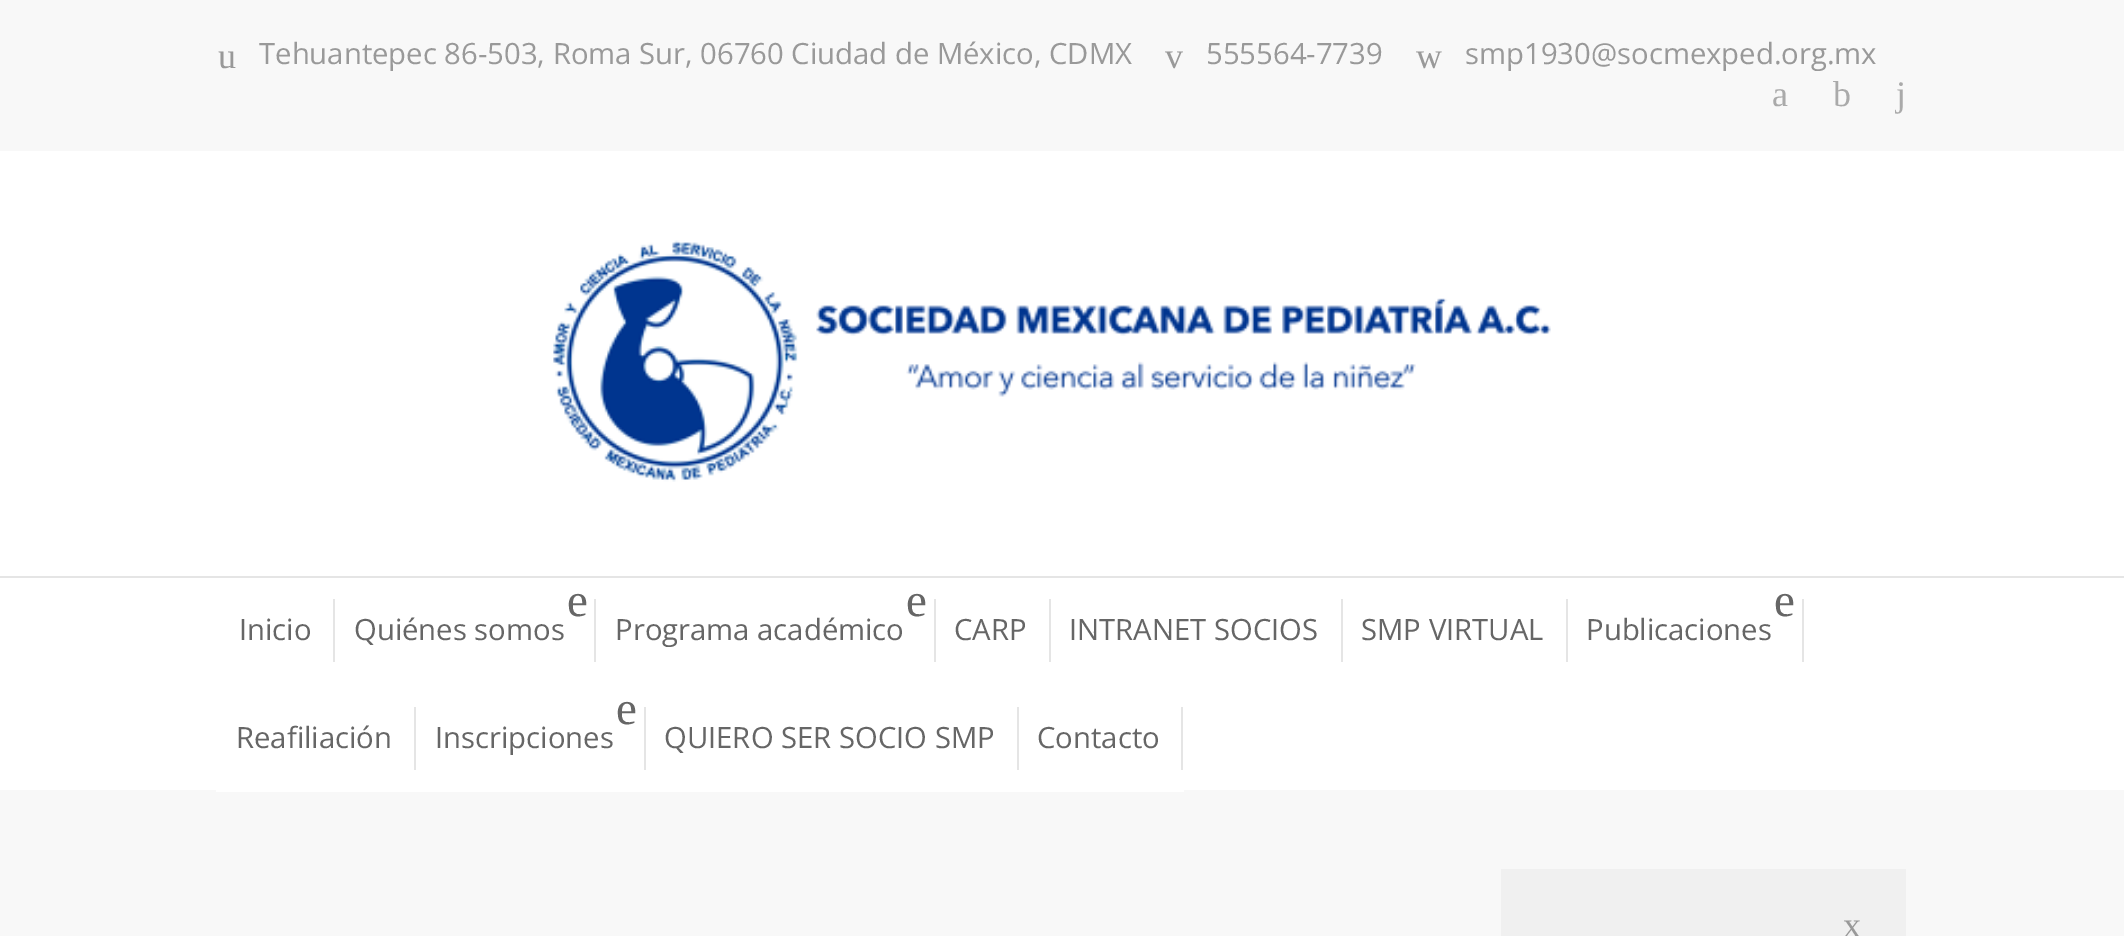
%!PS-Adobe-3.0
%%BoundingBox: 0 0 2124 936
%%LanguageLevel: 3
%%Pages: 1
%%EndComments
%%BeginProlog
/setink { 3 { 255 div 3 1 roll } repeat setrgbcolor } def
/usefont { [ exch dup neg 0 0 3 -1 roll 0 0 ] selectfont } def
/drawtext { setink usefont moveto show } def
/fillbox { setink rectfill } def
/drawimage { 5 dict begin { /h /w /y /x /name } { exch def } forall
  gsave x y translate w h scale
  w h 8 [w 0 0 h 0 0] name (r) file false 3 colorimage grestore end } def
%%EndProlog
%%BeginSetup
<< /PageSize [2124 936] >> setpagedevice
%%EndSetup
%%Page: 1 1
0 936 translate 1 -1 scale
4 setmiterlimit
0 0 2124 936 248 248 248 fillbox
(u) 218 68 /LiberationSerif-Regular 36 153 153 153 drawtext
(Tehuantepec 86-503, Roma Sur, 06760 Ciudad de México, CDMX) 259 64 /OpenSans-Regular 29.25 153 153 153 drawtext
(v) 1165 68 /LiberationSerif-Regular 36 153 153 153 drawtext
(555564-7739) 1206 64 /OpenSans-Regular 29.25 153 153 153 drawtext
(w) 1416 68 /LiberationSerif-Regular 36 153 153 153 drawtext
(smp1930@socmexped.org.mx) 1465 64 /OpenSans-Regular 29.25 153 153 153 drawtext
(a) 1772 106 /LiberationSerif-Regular 36 170 170 170 drawtext
(b) 1833 106 /LiberationSerif-Regular 36 170 170 170 drawtext
(j) 1896 106 /LiberationSerif-Regular 36 170 170 170 drawtext
0 151 2124 425 255 255 255 fillbox
(assets/img1.rgb) 553 240 998 242 drawimage
0 576 2124 2 229 229 229 fillbox
0 578 2124 212 255 255 255 fillbox
(Inicio) 239 640 /OpenSans-Regular 29.25 102 102 102 drawtext
333 599 2 63 229 229 229 fillbox
(e) 567 616 /LiberationSerif-Regular 47 102 102 102 drawtext
(Quiénes somos) 354 640 /OpenSans-Regular 29.25 102 102 102 drawtext
594 599 2 63 229 229 229 fillbox
(e) 906 616 /LiberationSerif-Regular 47 102 102 102 drawtext
(Programa académico) 615 640 /OpenSans-Regular 29.25 102 102 102 drawtext
934 599 2 63 229 229 229 fillbox
(CARP) 954 640 /OpenSans-Regular 29.25 102 102 102 drawtext
1049 599 2 63 229 229 229 fillbox
(INTRANET SOCIOS) 1069 640 /OpenSans-Regular 29.25 102 102 102 drawtext
1341 599 2 63 229 229 229 fillbox
(SMP VIRTUAL) 1361 640 /OpenSans-Regular 29.25 102 102 102 drawtext
1566 599 2 63 229 229 229 fillbox
(e) 1774 616 /LiberationSerif-Regular 47 102 102 102 drawtext
(Publicaciones) 1586 640 /OpenSans-Regular 29.25 102 102 102 drawtext
1802 599 2 63 229 229 229 fillbox
216 790 968 2 255 255 255 fillbox
(Reafiliación) 236 748 /OpenSans-Regular 29.25 102 102 102 drawtext
414 707 2 63 229 229 229 fillbox
(e) 616 724 /LiberationSerif-Regular 47 102 102 102 drawtext
(Inscripciones) 435 748 /OpenSans-Regular 29.25 102 102 102 drawtext
644 707 2 63 229 229 229 fillbox
(QUIERO SER SOCIO SMP) 664 748 /OpenSans-Regular 29.25 102 102 102 drawtext
1017 707 2 63 229 229 229 fillbox
(Contacto) 1037 748 /OpenSans-Regular 29.25 102 102 102 drawtext
1181 707 2 63 229 229 229 fillbox
1501 869 405 67 240 240 240 fillbox
(x) 1843 937 /LiberationSerif-Regular 36 153 153 153 drawtext
showpage
%%EOF
